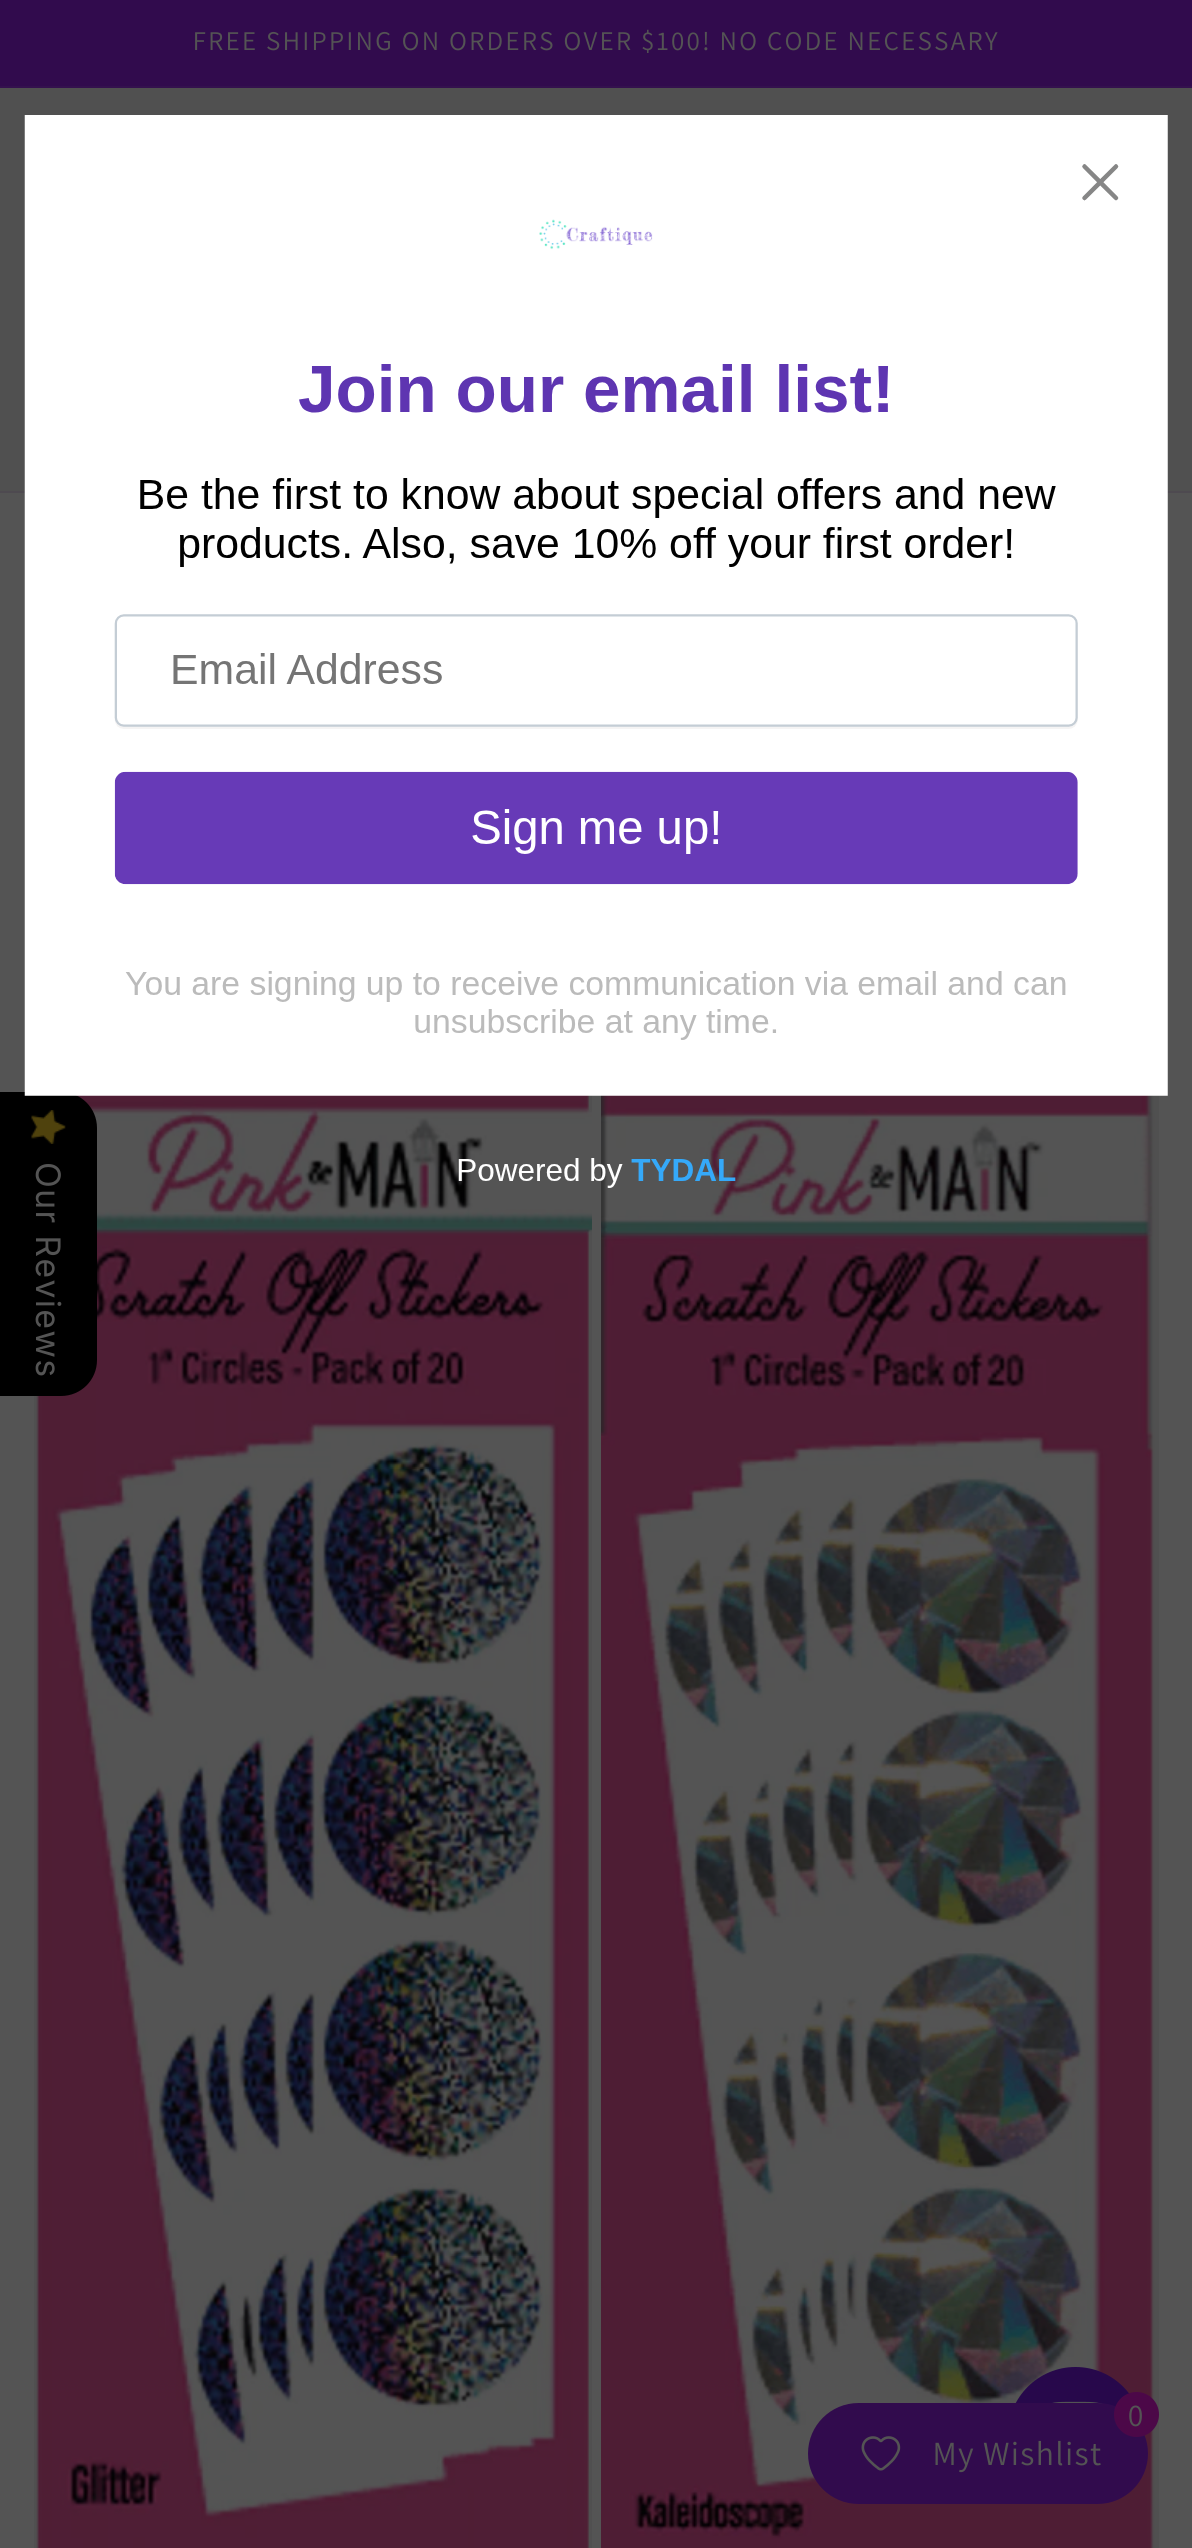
%!PS-Adobe-3.0
%%BoundingBox: 0 0 1192 2548
%%LanguageLevel: 3
%%Pages: 1
%%EndComments
%%BeginProlog
/setink { 3 { 255 div 3 1 roll } repeat setrgbcolor } def
/usefont { [ exch dup neg 0 0 3 -1 roll 0 0 ] selectfont } def
/fillbox { setink rectfill } def
/disc { newpath 0 360 arc closepath } def
/rrect { 5 dict begin { /r /h /w /y /x } { exch def } forall
  x r add y moveto x w add y 2 copy h add r arct x w add y h add x 1 index r arct
  x y h add x y r arct x y 2 copy exch w add exch r arct closepath end } def
/drawimage { 5 dict begin { /h /w /y /x /name } { exch def } forall
  gsave x y translate w h scale
  w h 8 [w 0 0 h 0 0] name (r) file false 3 colorimage grestore end } def
%%EndProlog
%%BeginSetup
<< /PageSize [1192 2548] >> setpagedevice
%%EndSetup
%%Page: 1 1
0 2548 translate 1 -1 scale
4 setmiterlimit
0 0 1192 2548 255 255 255 fillbox
0 0 1192 86 150 34 235 fillbox
0 86 1192 2 158 52 237 fillbox
/Assistant-Regular 27 usefont
255 255 255 setink
193 50 moveto 2.25 0 (FREE SHIPPING ON ORDERS OVER $100! NO CODE NECESSARY) ashow
0 88 1192 403 243 243 243 fillbox
0 491 1192 2 236 226 242 fillbox
34 1095 558 1453 243 243 243 fillbox
(assets/img2.rgb) 36 1095 556 1453 drawimage
1147 1095 12 1453 243 243 243 fillbox
(assets/img3.rgb) 601 1095 553 1453 drawimage
0 0 0 setink
97 1128 moveto 97 1360 lineto 97 1380 81 1396 61 1396 curveto 0 1396 lineto 0 1092 lineto 61 1092 lineto 81 1092 97 1108 97 1128 curveto closepath fill
(assets/img4.rgb) 31 1110 35 34 drawimage
/Inter-Regular 33.75 usefont
255 255 255 setink
gsave 36 1162 translate 90 rotate 0 0 moveto 1.4 0 (Our Reviews) ashow grestore
117 24 229 setink
1075.5 2434.5 67.5 disc fill
(assets/img5.rgb) 1052 2401 51 3 drawimage
150 34 235 setink
808 2403 340 101 50.5 rrect fill
230 23 220 setink
1136.5 2414.5 22.5 disc fill
/Assistant-Regular 32 usefont
255 255 255 setink
1128 2426 moveto 1.4 0 (0) ashow
(assets/img6.rgb) 861 2436 40 35 drawimage
/Assistant-Regular 33.75 usefont
932 2465 moveto 1.4 0 (My Wishlist) ashow
(assets/img1.rgb) 0 0 1192 2548 drawimage
showpage
%%EOF
